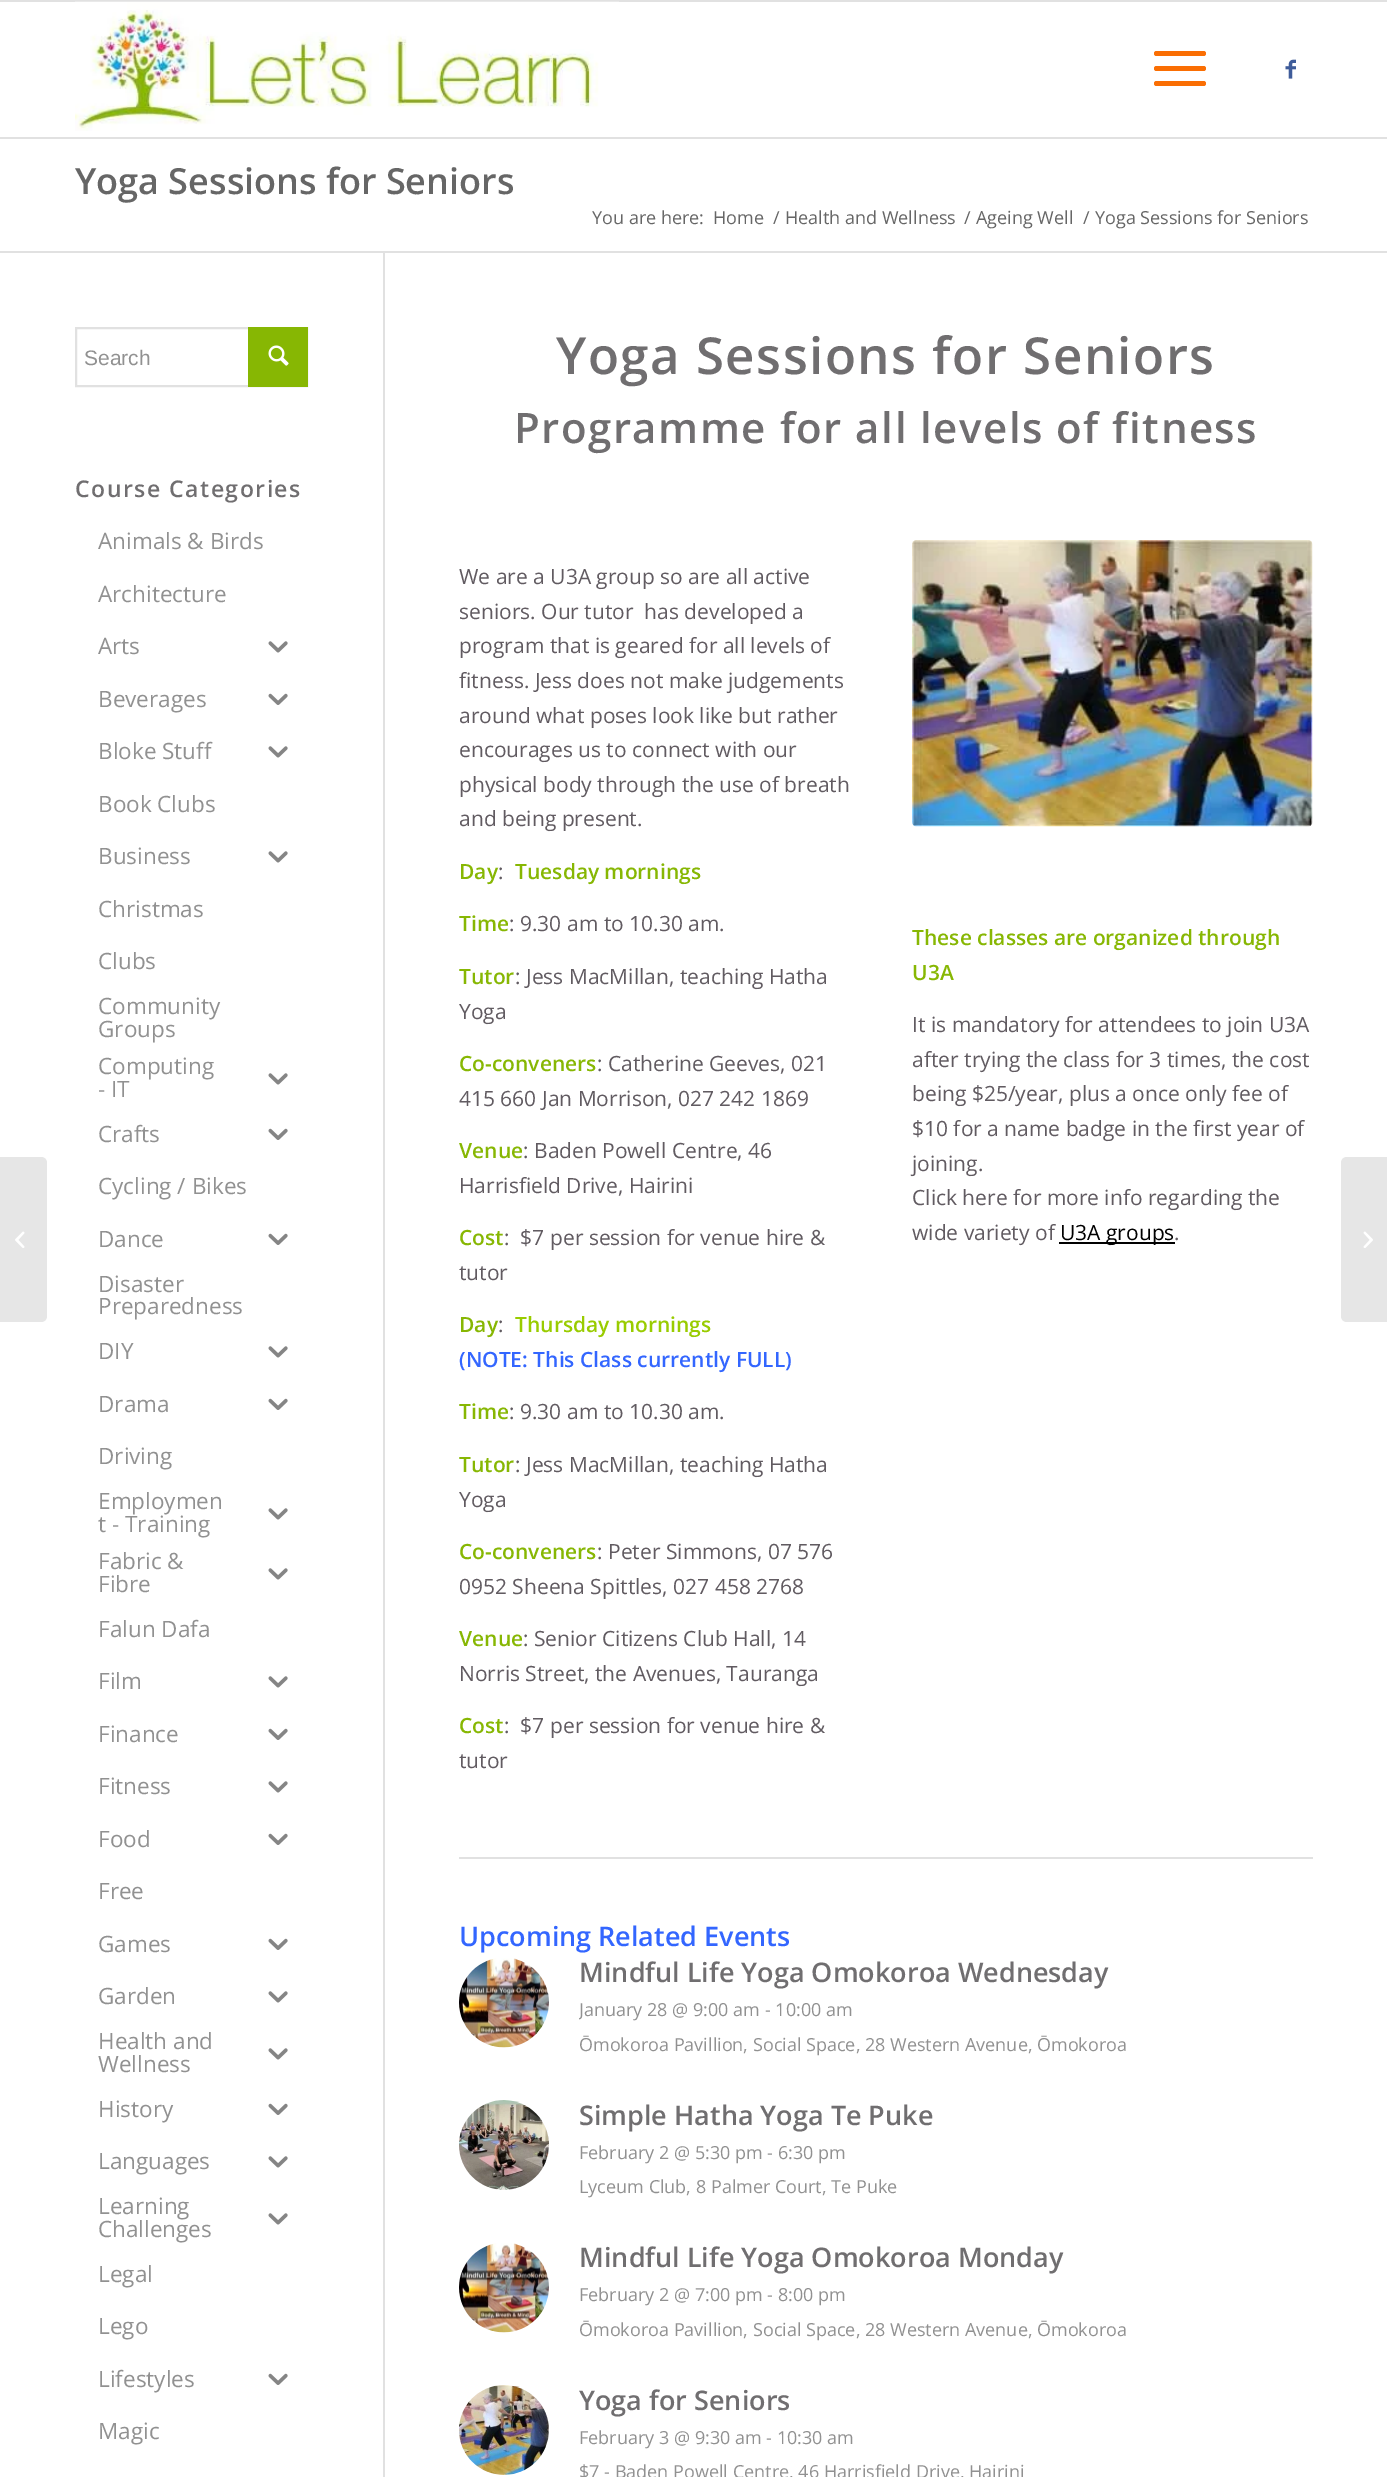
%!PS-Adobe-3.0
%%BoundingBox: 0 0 1387 2477
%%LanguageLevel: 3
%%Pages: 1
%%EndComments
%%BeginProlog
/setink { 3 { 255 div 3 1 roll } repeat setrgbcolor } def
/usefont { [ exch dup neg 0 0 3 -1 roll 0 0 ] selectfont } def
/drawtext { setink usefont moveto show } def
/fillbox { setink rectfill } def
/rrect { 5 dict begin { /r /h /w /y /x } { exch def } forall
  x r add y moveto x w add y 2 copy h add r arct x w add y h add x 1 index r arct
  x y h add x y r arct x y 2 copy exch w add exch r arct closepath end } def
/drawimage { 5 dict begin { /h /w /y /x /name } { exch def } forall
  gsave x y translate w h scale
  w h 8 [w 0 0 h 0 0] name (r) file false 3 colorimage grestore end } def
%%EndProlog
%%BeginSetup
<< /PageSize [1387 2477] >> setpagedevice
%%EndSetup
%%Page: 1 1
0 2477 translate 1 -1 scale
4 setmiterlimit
0 0 1387 2477 255 255 255 fillbox
0 0 1387 2 225 225 225 fillbox
0 137 1387 2 225 225 225 fillbox
(assets/img1.rgb) 75 1 544 130 drawimage
250 110 3 setink
1154 66 52 5 2.5 rrect fill
1154 51 52 5 2.5 rrect fill
1154 81 52 5 2.5 rrect fill
(assets/img2.rgb) 1285 59 11 20 drawimage
230 230 230 setink
0 1157 moveto 41 1157 lineto 44.5 1157 47 1159.5 47 1163 curveto 47 1316 lineto 47 1319.5 44.5 1322 41 1322 curveto 0 1322 lineto closepath fill
(assets/img3.rgb) 15 1231 10 17 drawimage
(Yoga Sessions for Seniors) 75 194 /OpenSans-SemiBold 36 102 102 102 drawtext
(You are here:) 592 224 /OpenSans-Regular 18 102 102 102 drawtext
(Home) 713 224 /OpenSans-Regular 18 102 102 102 drawtext
(/) 773 224 /OpenSans-Regular 18 102 102 102 drawtext
(Health and Wellness) 785 224 /OpenSans-Regular 18 102 102 102 drawtext
(/) 964 224 /OpenSans-Regular 18 102 102 102 drawtext
(Ageing Well) 976 224 /OpenSans-Regular 18 102 102 102 drawtext
(/) 1083 224 /OpenSans-Regular 18 102 102 102 drawtext
(Yoga Sessions for Seniors) 1095 224 /OpenSans-Regular 18 102 102 102 drawtext
0 251 1387 2 225 225 225 fillbox
2 setlinewidth
76 328 231 58 rectstroke
(Search) 84 365 /LiberationSans-Regular 21 145 145 145 drawtext
248 327 60 60 135 183 3 fillbox
(assets/img4.rgb) 268 345 21 21 drawimage
/OpenSans-SemiBold 23 usefont
112 110 112 setink
75 497 moveto 1.5 0 (Course Categories) ashow
(Animals & Birds) 98 549 /OpenSans-Regular 22.5 145 145 145 drawtext
(Architecture) 98 602 /OpenSans-Regular 22.5 145 145 145 drawtext
(Arts) 98 654 /OpenSans-Regular 22.5 145 145 145 drawtext
(assets/img5.rgb) 268 641 20 12 drawimage
(Beverages) 98 707 /OpenSans-Regular 22.5 145 145 145 drawtext
(assets/img6.rgb) 268 693 20 12 drawimage
(Bloke Stuff) 98 759 /OpenSans-Regular 22.5 145 145 145 drawtext
(assets/img5.rgb) 268 746 20 12 drawimage
(Book Clubs) 98 812 /OpenSans-Regular 22.5 145 145 145 drawtext
(Business) 98 864 /OpenSans-Regular 22.5 145 145 145 drawtext
(assets/img5.rgb) 268 851 20 12 drawimage
(Christmas) 98 917 /OpenSans-Regular 22.5 145 145 145 drawtext
(Clubs) 98 969 /OpenSans-Regular 22.5 145 145 145 drawtext
(Community) 98 1014 /OpenSans-Regular 22.5 145 145 145 drawtext
(Groups) 98 1037 /OpenSans-Regular 22.5 145 145 145 drawtext
(Computing) 98 1074 /OpenSans-Regular 22.5 145 145 145 drawtext
(- IT) 98 1097 /OpenSans-Regular 22.5 145 145 145 drawtext
(assets/img5.rgb) 268 1073 20 12 drawimage
(Crafts) 98 1142 /OpenSans-Regular 22.5 145 145 145 drawtext
(assets/img6.rgb) 268 1128 20 12 drawimage
(Cycling / Bikes) 98 1194 /OpenSans-Regular 22.5 145 145 145 drawtext
(Dance) 98 1247 /OpenSans-Regular 22.5 145 145 145 drawtext
(assets/img6.rgb) 268 1233 20 12 drawimage
(Disaster) 98 1292 /OpenSans-Regular 22.5 145 145 145 drawtext
(Preparedness) 98 1314 /OpenSans-Regular 22.5 145 145 145 drawtext
(DIY) 98 1359 /OpenSans-Regular 22.5 145 145 145 drawtext
(assets/img5.rgb) 268 1346 20 12 drawimage
(Drama) 98 1412 /OpenSans-Regular 22.5 145 145 145 drawtext
(assets/img6.rgb) 268 1398 20 12 drawimage
(Driving) 98 1464 /OpenSans-Regular 22.5 145 145 145 drawtext
(Employmen) 98 1509 /OpenSans-Regular 22.5 145 145 145 drawtext
(t - Training) 98 1532 /OpenSans-Regular 22.5 145 145 145 drawtext
(assets/img5.rgb) 268 1508 20 12 drawimage
(Fabric &) 98 1569 /OpenSans-Regular 22.5 145 145 145 drawtext
(Fibre) 98 1592 /OpenSans-Regular 22.5 145 145 145 drawtext
(assets/img5.rgb) 268 1568 20 12 drawimage
(Falun Dafa) 98 1637 /OpenSans-Regular 22.5 145 145 145 drawtext
(Film) 98 1689 /OpenSans-Regular 22.5 145 145 145 drawtext
(assets/img5.rgb) 268 1676 20 12 drawimage
(Finance) 98 1742 /OpenSans-Regular 22.5 145 145 145 drawtext
(assets/img6.rgb) 268 1728 20 12 drawimage
(Fitness) 98 1794 /OpenSans-Regular 22.5 145 145 145 drawtext
(assets/img5.rgb) 268 1781 20 12 drawimage
(Food) 98 1847 /OpenSans-Regular 22.5 145 145 145 drawtext
(assets/img6.rgb) 268 1833 20 12 drawimage
(Free) 98 1899 /OpenSans-Regular 22.5 145 145 145 drawtext
(Games) 98 1952 /OpenSans-Regular 22.5 145 145 145 drawtext
(assets/img6.rgb) 268 1938 20 12 drawimage
(Garden) 98 2004 /OpenSans-Regular 22.5 145 145 145 drawtext
(assets/img5.rgb) 268 1991 20 12 drawimage
(Health and) 98 2049 /OpenSans-Regular 22.5 145 145 145 drawtext
(Wellness) 98 2072 /OpenSans-Regular 22.5 145 145 145 drawtext
(assets/img5.rgb) 268 2048 20 12 drawimage
(History) 98 2117 /OpenSans-Regular 22.5 145 145 145 drawtext
(assets/img6.rgb) 268 2103 20 12 drawimage
(Languages) 98 2169 /OpenSans-Regular 22.5 145 145 145 drawtext
(assets/img5.rgb) 268 2156 20 12 drawimage
(Learning) 98 2214 /OpenSans-Regular 22.5 145 145 145 drawtext
(Challenges) 98 2237 /OpenSans-Regular 22.5 145 145 145 drawtext
(assets/img5.rgb) 268 2213 20 12 drawimage
(Legal) 98 2282 /OpenSans-Regular 22.5 145 145 145 drawtext
(Lego) 98 2334 /OpenSans-Regular 22.5 145 145 145 drawtext
(Lifestyles) 98 2387 /OpenSans-Regular 22.5 145 145 145 drawtext
(assets/img6.rgb) 268 2373 20 12 drawimage
(Magic) 98 2439 /OpenSans-Regular 22.5 145 145 145 drawtext
383 252 2 2225 225 225 225 fillbox
/OpenSans-SemiBold 51 usefont
112 110 112 setink
556 374 moveto 1.5 0 (Yoga Sessions for Seniors) ashow
/OpenSans-SemiBold 42 usefont
514 443 moveto 1.5 0 (Programme for all levels of fitness) ashow
(We are a U3A group so are all active) 459 584 /OpenSans-Regular 21 97 91 97 drawtext
(seniors. Our tutor  has developed a) 459 619 /OpenSans-Regular 21 97 91 97 drawtext
(program that is geared for all levels of) 459 653 /OpenSans-Regular 21 97 91 97 drawtext
(fitness. Jess does not make judgements) 459 688 /OpenSans-Regular 21 97 91 97 drawtext
(around what poses look like but rather) 459 723 /OpenSans-Regular 21 97 91 97 drawtext
(encourages us to connect with our) 459 757 /OpenSans-Regular 21 97 91 97 drawtext
(physical body through the use of breath) 459 792 /OpenSans-Regular 21 97 91 97 drawtext
(and being present.) 459 826 /OpenSans-Regular 21 97 91 97 drawtext
(Day) 459 879 /OpenSans-SemiBold 21 135 183 3 drawtext
(:) 498 879 /OpenSans-Regular 21 97 91 97 drawtext
(Tuesday mornings) 515 879 /OpenSans-SemiBold 21 135 183 3 drawtext
(Time) 459 931 /OpenSans-SemiBold 21 135 183 3 drawtext
(: 9.30 am to 10.30 am.) 509 931 /OpenSans-Regular 21 97 91 97 drawtext
(Tutor) 459 984 /OpenSans-SemiBold 21 135 183 3 drawtext
(: Jess MacMillan, teaching Hatha) 515 984 /OpenSans-Regular 21 97 91 97 drawtext
(Yoga) 459 1019 /OpenSans-Regular 21 97 91 97 drawtext
(Co-conveners) 459 1071 /OpenSans-SemiBold 21 135 183 3 drawtext
(: Catherine Geeves, 021) 597 1071 /OpenSans-Regular 21 97 91 97 drawtext
(415 660 Jan Morrison, 027 242 1869) 459 1106 /OpenSans-Regular 21 97 91 97 drawtext
(Venue) 459 1158 /OpenSans-SemiBold 21 135 183 3 drawtext
(: Baden Powell Centre, 46) 523 1158 /OpenSans-Regular 21 97 91 97 drawtext
(Harrisfield Drive, Hairini) 459 1193 /OpenSans-Regular 21 97 91 97 drawtext
(Cost) 459 1245 /OpenSans-SemiBold 21 135 183 3 drawtext
(:  $7 per session for venue hire &) 504 1245 /OpenSans-Regular 21 97 91 97 drawtext
(tutor) 459 1280 /OpenSans-Regular 21 97 91 97 drawtext
(Day) 459 1332 /OpenSans-SemiBold 21 135 183 3 drawtext
(:) 498 1332 /OpenSans-Regular 21 97 91 97 drawtext
(Thursday mornings) 515 1332 /OpenSans-SemiBold 21 153 204 0 drawtext
(\(NOTE: This Class currently FULL\)) 459 1367 /OpenSans-SemiBold 21 51 102 255 drawtext
(Time) 459 1419 /OpenSans-SemiBold 21 135 183 3 drawtext
(: 9.30 am to 10.30 am.) 509 1419 /OpenSans-Regular 21 97 91 97 drawtext
(Tutor) 459 1472 /OpenSans-SemiBold 21 135 183 3 drawtext
(: Jess MacMillan, teaching Hatha) 515 1472 /OpenSans-Regular 21 97 91 97 drawtext
(Yoga) 459 1507 /OpenSans-Regular 21 97 91 97 drawtext
(Co-conveners) 459 1559 /OpenSans-SemiBold 21 135 183 3 drawtext
(: Peter Simmons, 07 576) 597 1559 /OpenSans-Regular 21 97 91 97 drawtext
(0952 Sheena Spittles, 027 458 2768) 459 1594 /OpenSans-Regular 21 97 91 97 drawtext
(Venue) 459 1646 /OpenSans-SemiBold 21 135 183 3 drawtext
(: Senior Citizens Club Hall, 14) 523 1646 /OpenSans-Regular 21 97 91 97 drawtext
(Norris Street, the Avenues, Tauranga) 459 1681 /OpenSans-Regular 21 97 91 97 drawtext
(Cost) 459 1733 /OpenSans-SemiBold 21 135 183 3 drawtext
(:  $7 per session for venue hire &) 504 1733 /OpenSans-Regular 21 97 91 97 drawtext
(tutor) 459 1768 /OpenSans-Regular 21 97 91 97 drawtext
(assets/img7.rgb) 912 540 401 287 drawimage
(These classes are organized through) 912 945 /OpenSans-SemiBold 21 135 183 3 drawtext
(U3A) 912 980 /OpenSans-SemiBold 21 135 183 3 drawtext
(It is mandatory for attendees to join U3A) 912 1032 /OpenSans-Regular 21 97 91 97 drawtext
(after trying the class for 3 times, the cost) 912 1067 /OpenSans-Regular 21 97 91 97 drawtext
(being $25/year, plus a once only fee of) 912 1101 /OpenSans-Regular 21 97 91 97 drawtext
($10 for a name badge in the first year of) 912 1136 /OpenSans-Regular 21 97 91 97 drawtext
(joining.) 912 1171 /OpenSans-Regular 21 97 91 97 drawtext
(Click here for more info regarding the) 912 1205 /OpenSans-Regular 21 97 91 97 drawtext
(wide variety of) 912 1240 /OpenSans-Regular 21 97 91 97 drawtext
1059 1242 116 2 0 0 0 fillbox
(U3A groups) 1060 1240 /OpenSans-Regular 21 0 0 0 drawtext
(.) 1174 1240 /OpenSans-Regular 21 97 91 97 drawtext
459 1857 854 2 225 225 225 fillbox
(Upcoming Related Events) 459 1946 /OpenSans-SemiBold 27 51 102 255 drawtext
(assets/img8.rgb) 459 1958 90 90 drawimage
(Mindful Life Yoga Omokoroa Wednesday) 579 1982 /OpenSans-SemiBold 27 112 110 112 drawtext
gsave
579 1958 734 105 rectclip
(January 28 @ 9:00 am) 579 2016 /OpenSans-Regular 18 145 145 145 drawtext
grestore
(- 10:00 am) 765 2016 /OpenSans-Regular 18 145 145 145 drawtext
(Ōmokoroa Pavillion, Social Space, 28 Western Avenue, Ōmokoroa) 579 2051 /OpenSans-Regular 18 145 145 145 drawtext
(assets/img9.rgb) 459 2100 90 90 drawimage
(Simple Hatha Yoga Te Puke) 579 2125 /OpenSans-SemiBold 27 112 110 112 drawtext
(February 2 @ 5:30 pm - 6:30 pm) 579 2159 /OpenSans-Regular 18 145 145 145 drawtext
(Lyceum Club, 8 Palmer Court, Te Puke) 579 2193 /OpenSans-Regular 18 145 145 145 drawtext
(assets/img10.rgb) 459 2243 90 90 drawimage
(Mindful Life Yoga Omokoroa Monday) 579 2267 /OpenSans-SemiBold 27 112 110 112 drawtext
(February 2 @ 7:00 pm - 8:00 pm) 579 2301 /OpenSans-Regular 18 145 145 145 drawtext
(Ōmokoroa Pavillion, Social Space, 28 Western Avenue, Ōmokoroa) 579 2336 /OpenSans-Regular 18 145 145 145 drawtext
(assets/img11.rgb) 459 2385 90 90 drawimage
(Yoga for Seniors) 579 2410 /OpenSans-SemiBold 27 112 110 112 drawtext
(February 3 @ 9:30 am - 10:30 am) 579 2444 /OpenSans-Regular 18 145 145 145 drawtext
($7 - Baden Powell Centre, 46 Harrisfield Drive, Hairini) 579 2478 /OpenSans-Regular 18 145 145 145 drawtext
230 230 230 setink
1347 1157 moveto 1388 1157 lineto 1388 1322 lineto 1347 1322 lineto 1343.5 1322 1341 1319.5 1341 1316 curveto 1341 1163 lineto 1341 1159.5 1343.5 1157 1347 1157 curveto closepath fill
(assets/img12.rgb) 1363 1231 10 17 drawimage
showpage
%%EOF
